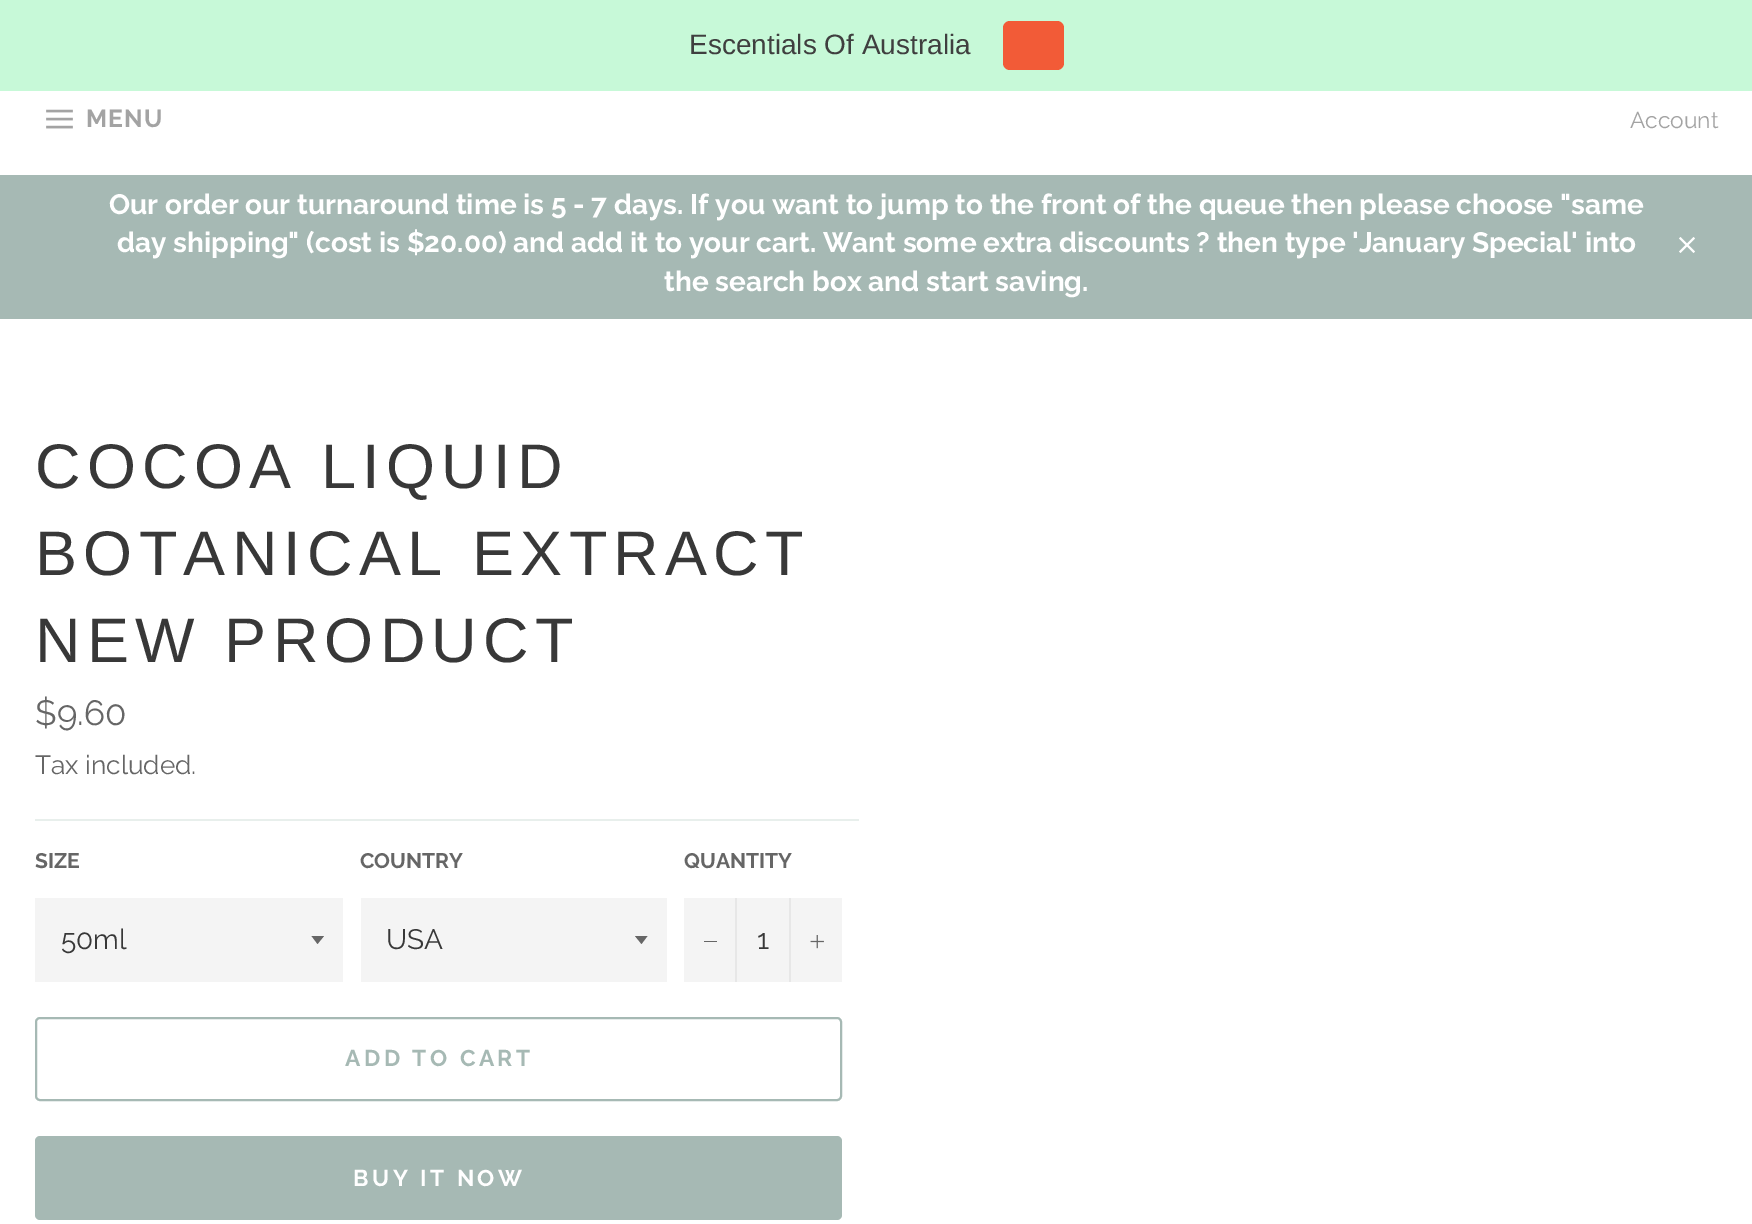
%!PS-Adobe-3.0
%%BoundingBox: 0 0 1752 1224
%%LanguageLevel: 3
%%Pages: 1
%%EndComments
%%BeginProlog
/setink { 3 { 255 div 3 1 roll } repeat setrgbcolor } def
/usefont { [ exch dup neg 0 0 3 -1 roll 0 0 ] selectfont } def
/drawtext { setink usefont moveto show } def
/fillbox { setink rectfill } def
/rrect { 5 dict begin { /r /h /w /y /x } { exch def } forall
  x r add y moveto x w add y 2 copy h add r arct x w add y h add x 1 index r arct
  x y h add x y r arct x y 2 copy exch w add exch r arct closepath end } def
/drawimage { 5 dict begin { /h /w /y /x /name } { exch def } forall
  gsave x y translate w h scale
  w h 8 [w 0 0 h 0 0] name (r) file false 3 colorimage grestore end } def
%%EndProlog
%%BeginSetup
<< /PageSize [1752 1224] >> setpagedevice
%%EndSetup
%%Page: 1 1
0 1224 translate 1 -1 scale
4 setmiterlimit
0 0 1752 1224 166 185 180 fillbox
0 0 1752 91 199 249 216 fillbox
(Escentials Of Australia) 689 54 /LiberationSans-Regular 28 63 63 63 drawtext
242 91 55 setink
1003 21 61 49 7 rrect fill
0 91 1752 84 255 255 255 fillbox
(assets/img1.rgb) 46 109 27 20 drawimage
/Raleway-Bold 24.5 usefont
163 163 163 setink
86 127 moveto 1 0 (MENU) ashow
(Account) 1630 128 /Raleway-Thin 22.75 163 163 163 drawtext
(Our order our turnaround time is 5 - 7 days. If you want to jump to the front of the queue then please choose "same) 109 214 /Raleway-Bold 28 255 255 255 drawtext
(day shipping" \(cost is $20.00\) and add it to your cart. Want some extra discounts ? then type 'January Special' into) 117 252 /Raleway-Bold 28 255 255 255 drawtext
(the search box and start saving.) 664 291 /Raleway-Bold 28 255 255 255 drawtext
(assets/img2.rgb) 1679 237 16 16 drawimage
0 319 1752 905 255 255 255 fillbox
/Arimo-Regular 63 usefont
56 56 56 setink
35 488 moveto 6.25 0 (COCOA LIQUID) ashow
35 575 moveto 6.25 0 (BOTANICAL EXTRACT) ashow
35 662 moveto 6.25 0 (NEW PRODUCT) ashow
($9.60) 35 725 /Raleway-Thin 35 102 102 102 drawtext
(Tax included.) 35 774 /Raleway-Thin 26.25 102 102 102 drawtext
35 819 824 2 232 239 236 fillbox
(SIZE) 35 868 /Raleway-Bold 21 102 102 102 drawtext
35 898 308 84 244 244 244 fillbox
102 102 102 setink
311.5 936 moveto 317.5 944 lineto 324 936 lineto closepath fill
(50ml) 61 949 /Raleway-Thin 28 56 56 56 drawtext
(COUNTRY) 360 868 /Raleway-Bold 21 102 102 102 drawtext
361 898 306 84 244 244 244 fillbox
102 102 102 setink
635 936 moveto 641.5 944 lineto 647.5 936 lineto closepath fill
(USA) 386 949 /Raleway-Thin 28 56 56 56 drawtext
(QUANTITY) 684 868 /Raleway-Bold 21 102 102 102 drawtext
684 898 158 84 244 244 244 fillbox
735 898 2 84 231 231 231 fillbox
704 941 13 1 102 102 102 fillbox
(1) 757 949 /Raleway-Thin 28 56 56 56 drawtext
789 898 2 84 231 231 231 fillbox
(assets/img3.rgb) 810 935 14 14 drawimage
166 185 180 setink
2 setlinewidth
36 1018 805 82 4 rrect stroke
/Raleway-Bold 22.75 usefont
345 1066 moveto 3.5 0 (ADD TO CART) ashow
35 1136 807 84 5 rrect fill
255 255 255 setink
353 1186 moveto 3.5 0 (BUY IT NOW) ashow
showpage
%%EOF
